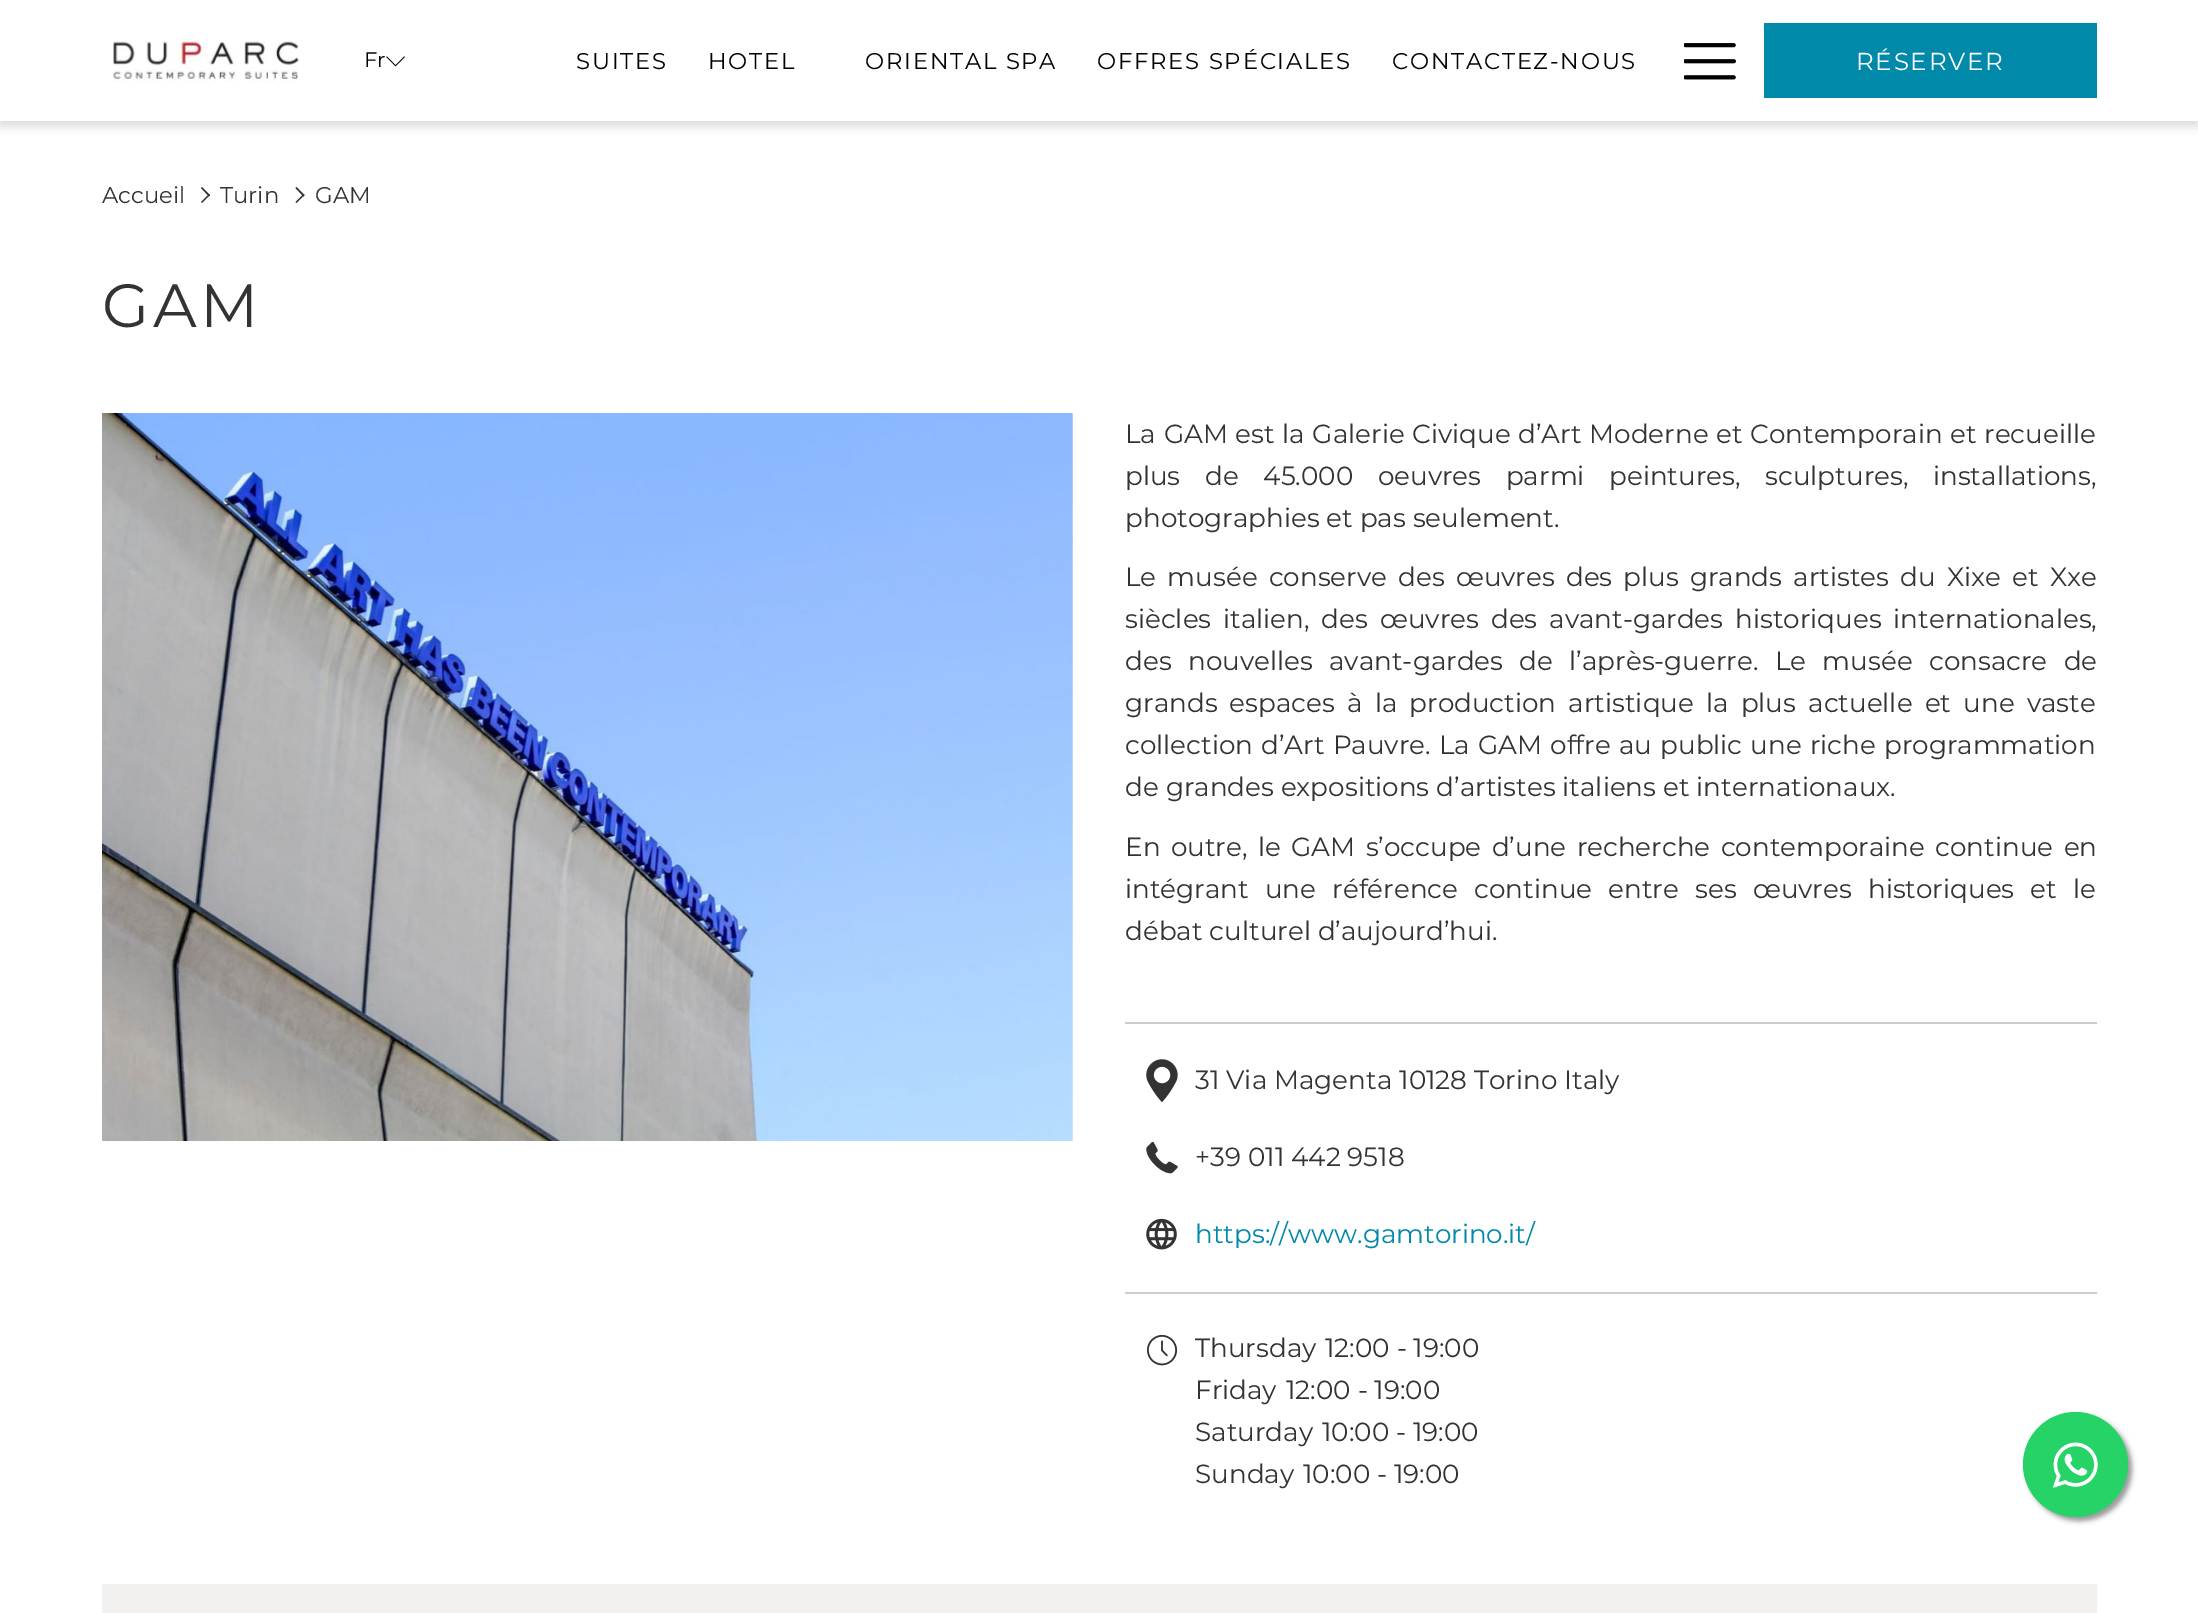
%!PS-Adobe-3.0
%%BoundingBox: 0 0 2198 1613
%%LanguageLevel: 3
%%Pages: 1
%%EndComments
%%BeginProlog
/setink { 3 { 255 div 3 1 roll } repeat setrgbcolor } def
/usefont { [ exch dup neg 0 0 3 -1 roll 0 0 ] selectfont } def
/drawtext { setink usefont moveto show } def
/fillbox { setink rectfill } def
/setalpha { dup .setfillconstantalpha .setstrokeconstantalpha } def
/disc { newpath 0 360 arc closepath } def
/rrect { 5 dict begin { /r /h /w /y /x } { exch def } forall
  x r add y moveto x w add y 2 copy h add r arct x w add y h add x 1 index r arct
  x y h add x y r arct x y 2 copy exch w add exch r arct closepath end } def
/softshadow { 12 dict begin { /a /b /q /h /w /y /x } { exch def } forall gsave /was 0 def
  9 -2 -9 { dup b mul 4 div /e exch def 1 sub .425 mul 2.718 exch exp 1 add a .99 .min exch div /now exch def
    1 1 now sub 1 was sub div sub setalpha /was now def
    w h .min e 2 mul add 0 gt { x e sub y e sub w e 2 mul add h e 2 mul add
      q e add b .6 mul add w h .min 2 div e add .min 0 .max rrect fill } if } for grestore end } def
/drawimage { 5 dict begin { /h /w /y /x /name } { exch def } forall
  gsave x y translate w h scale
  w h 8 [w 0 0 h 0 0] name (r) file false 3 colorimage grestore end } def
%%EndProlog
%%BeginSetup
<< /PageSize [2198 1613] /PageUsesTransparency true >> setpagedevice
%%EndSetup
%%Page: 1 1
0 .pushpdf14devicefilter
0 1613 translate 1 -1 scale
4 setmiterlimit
0 0 2198 1613 255 255 255 fillbox
0 0 0 setink
0 5 2198 121 0 5 0.15 softshadow
0 0 2198 121 255 255 255 fillbox
(assets/img1.rgb) 113 38 186 44 drawimage
(Fr) 364 67 /Montserrat-Regular 21 1 1 1 drawtext
(assets/img2.rgb) 386 56 19 11 drawimage
/Montserrat-Regular 22.75 usefont
576 69 moveto 1.75 0 (SUITES) ashow
708 69 moveto 1.75 0 (HOTEL) ashow
865 69 moveto 1.75 0 (ORIENTAL SPA) ashow
1097 69 moveto 1.75 0 (OFFRES SPÉCIALES) ashow
1392 69 moveto 1.75 0 (CONTACTEZ-NOUS) ashow
(assets/img3.rgb) 1684 43 52 37 drawimage
1764 23 333 75 0 137 168 fillbox
/Montserrat-Regular 24.5 usefont
255 255 255 setink
1856 70 moveto 1.75 0 (RÉSERVER) ashow
(Accueil) 102 203 /Montserrat-Regular 22.75 51 51 51 drawtext
201 188 moveto 202 187 lineto 210 195 lineto 209 196.5 lineto closepath fill
201 202 moveto 209 194 lineto 210 195 lineto 202 203 lineto closepath fill
(Turin) 220 203 /Montserrat-Regular 22.75 51 51 51 drawtext
295.5 188 moveto 296.5 187 lineto 304.5 195 lineto 303.5 196.5 lineto closepath fill
295.5 202 moveto 303.5 194 lineto 304.5 195 lineto 296.5 203 lineto closepath fill
(GAM) 315 203 /Montserrat-Regular 22.75 51 51 51 drawtext
/Montserrat-Regular 61 usefont
102 327 moveto 3.5 0 (GAM) ashow
(assets/img4.rgb) 102 413 971 728 drawimage
/Montserrat-Regular 26.25 usefont
1125 443 moveto 0.75 0 32 (La GAM est la Galerie Civique d’Art Moderne et Contemporain et recueille) widthshow
1125 485 moveto 17.75 0 32 (plus de 45.000 oeuvres parmi peintures, sculptures, installations,) widthshow
(photographies et pas seulement.) 1125 527 /Montserrat-Regular 26.25 51 51 51 drawtext
1125 586 moveto 4.25 0 32 (Le musée conserve des œuvres des plus grands artistes du Xixe et Xxe) widthshow
1125 628 moveto 5 0 32 (siècles italien, des œuvres des avant-gardes historiques internationales,) widthshow
1125 670 moveto 9.5 0 32 (des nouvelles avant-gardes de l’après-guerre. Le musée consacre de) widthshow
1125 712 moveto 5.25 0 32 (grands espaces à la production artistique la plus actuelle et une vaste) widthshow
1125 754 moveto 1.25 0 32 (collection d’Art Pauvre. La GAM offre au public une riche programmation) widthshow
(de grandes expositions d’artistes italiens et internationaux.) 1125 796 /Montserrat-Regular 26.25 51 51 51 drawtext
1125 856 moveto 3.5 0 32 (En outre, le GAM s’occupe d’une recherche contemporaine continue en) widthshow
1125 898 moveto 9.25 0 32 (intégrant une référence continue entre ses œuvres historiques et le) widthshow
(débat culturel d’aujourd’hui.) 1125 940 /Montserrat-Regular 26.25 51 51 51 drawtext
1125 1022 972 2 204 204 204 fillbox
(assets/img5.rgb) 1146 1059 32 43 drawimage
(31 Via Magenta 10128 Torino Italy) 1195 1089 /Montserrat-Regular 26.25 51 51 51 drawtext
(assets/img6.rgb) 1146 1141 32 33 drawimage
(+39 011 442 9518) 1195 1166 /Montserrat-Regular 26.25 51 51 51 drawtext
(assets/img7.rgb) 1146 1218 31 32 drawimage
(https://www.gamtorino.it/) 1195 1243 /Montserrat-Regular 26.25 0 137 168 drawtext
1125 1292 972 2 204 204 204 fillbox
(assets/img8.rgb) 1147 1334 31 32 drawimage
(Thursday) 1195 1357 /Montserrat-Regular 26.25 51 51 51 drawtext
(12:00 - 19:00) 1325 1357 /Montserrat-Regular 26.25 51 51 51 drawtext
(Friday) 1195 1399 /Montserrat-Regular 26.25 51 51 51 drawtext
(12:00 - 19:00) 1286 1399 /Montserrat-Regular 26.25 51 51 51 drawtext
(Saturday) 1195 1441 /Montserrat-Regular 26.25 51 51 51 drawtext
(10:00 - 19:00) 1322 1441 /Montserrat-Regular 26.25 51 51 51 drawtext
(Sunday) 1195 1483 /Montserrat-Regular 26.25 51 51 51 drawtext
(10:00 - 19:00) 1303 1483 /Montserrat-Regular 26.25 51 51 51 drawtext
102 1584 1995 29 243 240 240 fillbox
153 153 153 setink
2027 1416 105 105 52.5 2.5 1 softshadow
37 211 102 setink
2075.5 1464.5 52.5 disc fill
(assets/img9.rgb) 2052 1442 46 46 drawimage
.poppdf14devicefilter showpage
%%EOF
